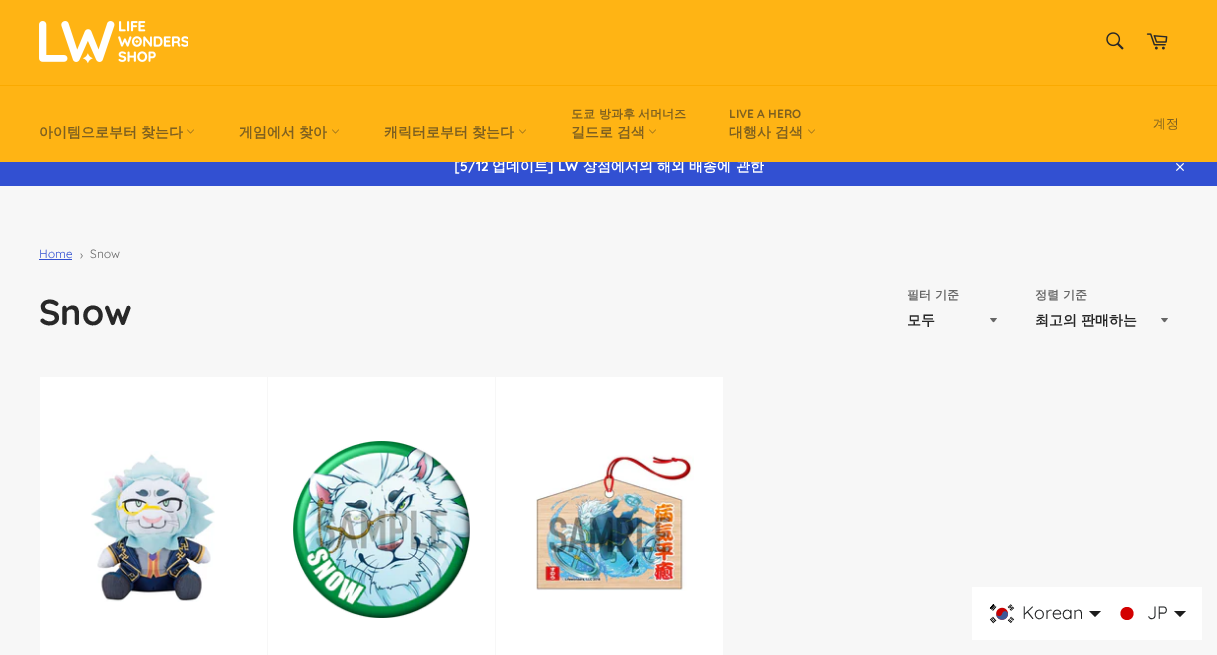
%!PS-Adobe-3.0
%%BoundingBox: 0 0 1217 655
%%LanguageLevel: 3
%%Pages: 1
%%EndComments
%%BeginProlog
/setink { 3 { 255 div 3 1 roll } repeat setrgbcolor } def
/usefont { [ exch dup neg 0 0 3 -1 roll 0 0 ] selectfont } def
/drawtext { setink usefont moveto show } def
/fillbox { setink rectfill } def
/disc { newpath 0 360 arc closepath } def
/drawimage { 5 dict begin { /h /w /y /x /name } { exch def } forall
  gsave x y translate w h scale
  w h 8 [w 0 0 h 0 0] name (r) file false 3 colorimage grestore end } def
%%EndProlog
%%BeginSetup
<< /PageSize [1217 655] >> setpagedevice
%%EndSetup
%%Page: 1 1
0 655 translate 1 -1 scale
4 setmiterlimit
0 0 1217 655 247 247 247 fillbox
0 0 1217 85 255 180 20 fillbox
(assets/img1.rgb) 39 21 149 43 drawimage
(assets/img2.rgb) 1106 32 18 18 drawimage
(assets/img3.rgb) 1146 33 22 17 drawimage
0 162 1217 24 50 80 210 fillbox
([5/12) 454 171 /Quicksand-Bold 14 255 255 255 drawtext
(업데이트) 492 171 /WenQuanYiZenHei-Bold 14 255 255 255 drawtext
(] LW) 548 171 /Quicksand-Bold 14 255 255 255 drawtext
(상점에서의 해외 배송에 관한) 583 171 /WenQuanYiZenHei-Bold 14 255 255 255 drawtext
0 86 1217 76 255 180 20 fillbox
0 85 1217 1 250 170 0 fillbox
(아이템으로부터 찾는다) 39 137 /WenQuanYiZenHei-Bold 14 126 96 32 drawtext
(assets/img4.rgb) 187 129 7 5 drawimage
(게임에서 찾아) 239 137 /WenQuanYiZenHei-Bold 14 126 96 32 drawtext
(assets/img4.rgb) 332 129 7 5 drawimage
(캐릭터로부터 찾는다) 384 137 /WenQuanYiZenHei-Bold 14 126 96 32 drawtext
(assets/img4.rgb) 519 129 7 5 drawimage
(도쿄 방과후 서머너즈) 571 118 /WenQuanYiZenHei-Bold 12 126 96 32 drawtext
(길드로 검색) 571 137 /WenQuanYiZenHei-Bold 14 126 96 32 drawtext
(assets/img4.rgb) 649 129 7 5 drawimage
(LIVE A HERO) 729 118 /Quicksand-Bold 12 126 96 32 drawtext
(대행사 검색) 729 137 /WenQuanYiZenHei-Bold 14 126 96 32 drawtext
(assets/img4.rgb) 808 129 7 5 drawimage
(계정) 1153 128 /WenQuanYiZenHei-Medium 13 126 96 32 drawtext
(assets/img5.rgb) 1176 163 8 8 drawimage
(Home) 39 258 /Quicksand-Regular 12 50 80 210 drawtext
39 259 33 1 50 80 210 fillbox
(›) 80 259 /Quicksand-Regular 12 102 102 102 drawtext
(Snow) 90 258 /Quicksand-Regular 12 102 102 102 drawtext
(Snow) 39 325 /Quicksand-Bold 36 40 40 40 drawtext
(필터 기준) 907 299 /WenQuanYiZenHei-Bold 12 102 102 102 drawtext
990 318 moveto 994.5 323.5 992.5 323.5 997 318 curveto closepath fill
(모두) 907 325 /WenQuanYiZenHei-Bold 14 40 40 40 drawtext
(정렬 기준) 1035 299 /WenQuanYiZenHei-Bold 12 102 102 102 drawtext
1161 318 moveto 1165.5 323.5 1163.5 323.5 1168 318 curveto closepath fill
(최고의 판매하는) 1035 325 /WenQuanYiZenHei-Bold 14 40 40 40 drawtext
40 377 227 278 255 255 255 fillbox
(assets/img6.rgb) 91 451 124 151 drawimage
268 377 227 278 255 255 255 fillbox
(assets/img7.rgb) 293 441 177 177 drawimage
496 377 227 278 255 255 255 fillbox
(assets/img8.rgb) 536 455 158 136 drawimage
972 587 230 53 255 255 255 fillbox
(assets/img9.rgb) 989 604 26 20 drawimage
(Korean) 1022 619 /Quicksand-Regular 18 32 34 35 drawtext
29 29 29 setink
1089 611 moveto 1101 611 lineto 1095 617 lineto closepath fill
211 0 0 setink
1127 613.5 6.5 disc fill
(JP) 1147 619 /Quicksand-Regular 18 32 34 35 drawtext
29 29 29 setink
1174 611 moveto 1186 611 lineto 1180 617 lineto closepath fill
showpage
%%EOF
